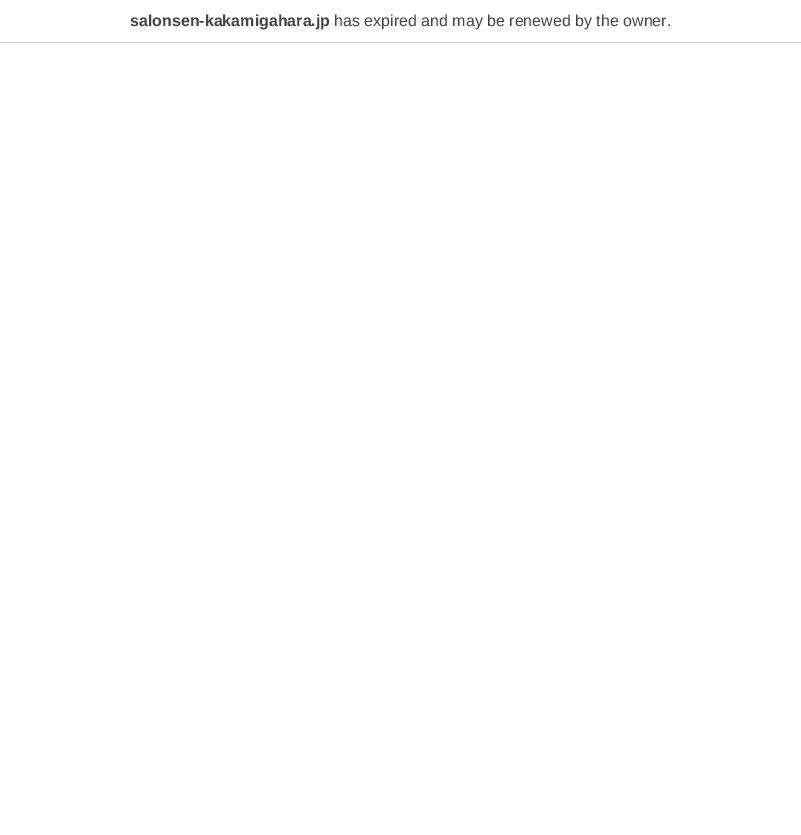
%!PS-Adobe-3.0
%%BoundingBox: 0 0 801 835
%%LanguageLevel: 3
%%Pages: 1
%%EndComments
%%BeginProlog
/setink { 3 { 255 div 3 1 roll } repeat setrgbcolor } def
/usefont { [ exch dup neg 0 0 3 -1 roll 0 0 ] selectfont } def
/drawtext { setink usefont moveto show } def
/fillbox { setink rectfill } def
%%EndProlog
%%BeginSetup
<< /PageSize [801 835] >> setpagedevice
%%EndSetup
%%Page: 1 1
0 835 translate 1 -1 scale
4 setmiterlimit
0 0 801 835 255 255 255 fillbox
0 42 801 1 204 204 204 fillbox
(salonsen-kakamigahara.jp) 130 26 /LiberationSans-Bold 16 68 68 68 drawtext
(has expired and may be renewed by the owner.) 334 26 /LiberationSans-Regular 16 68 68 68 drawtext
showpage
%%EOF
